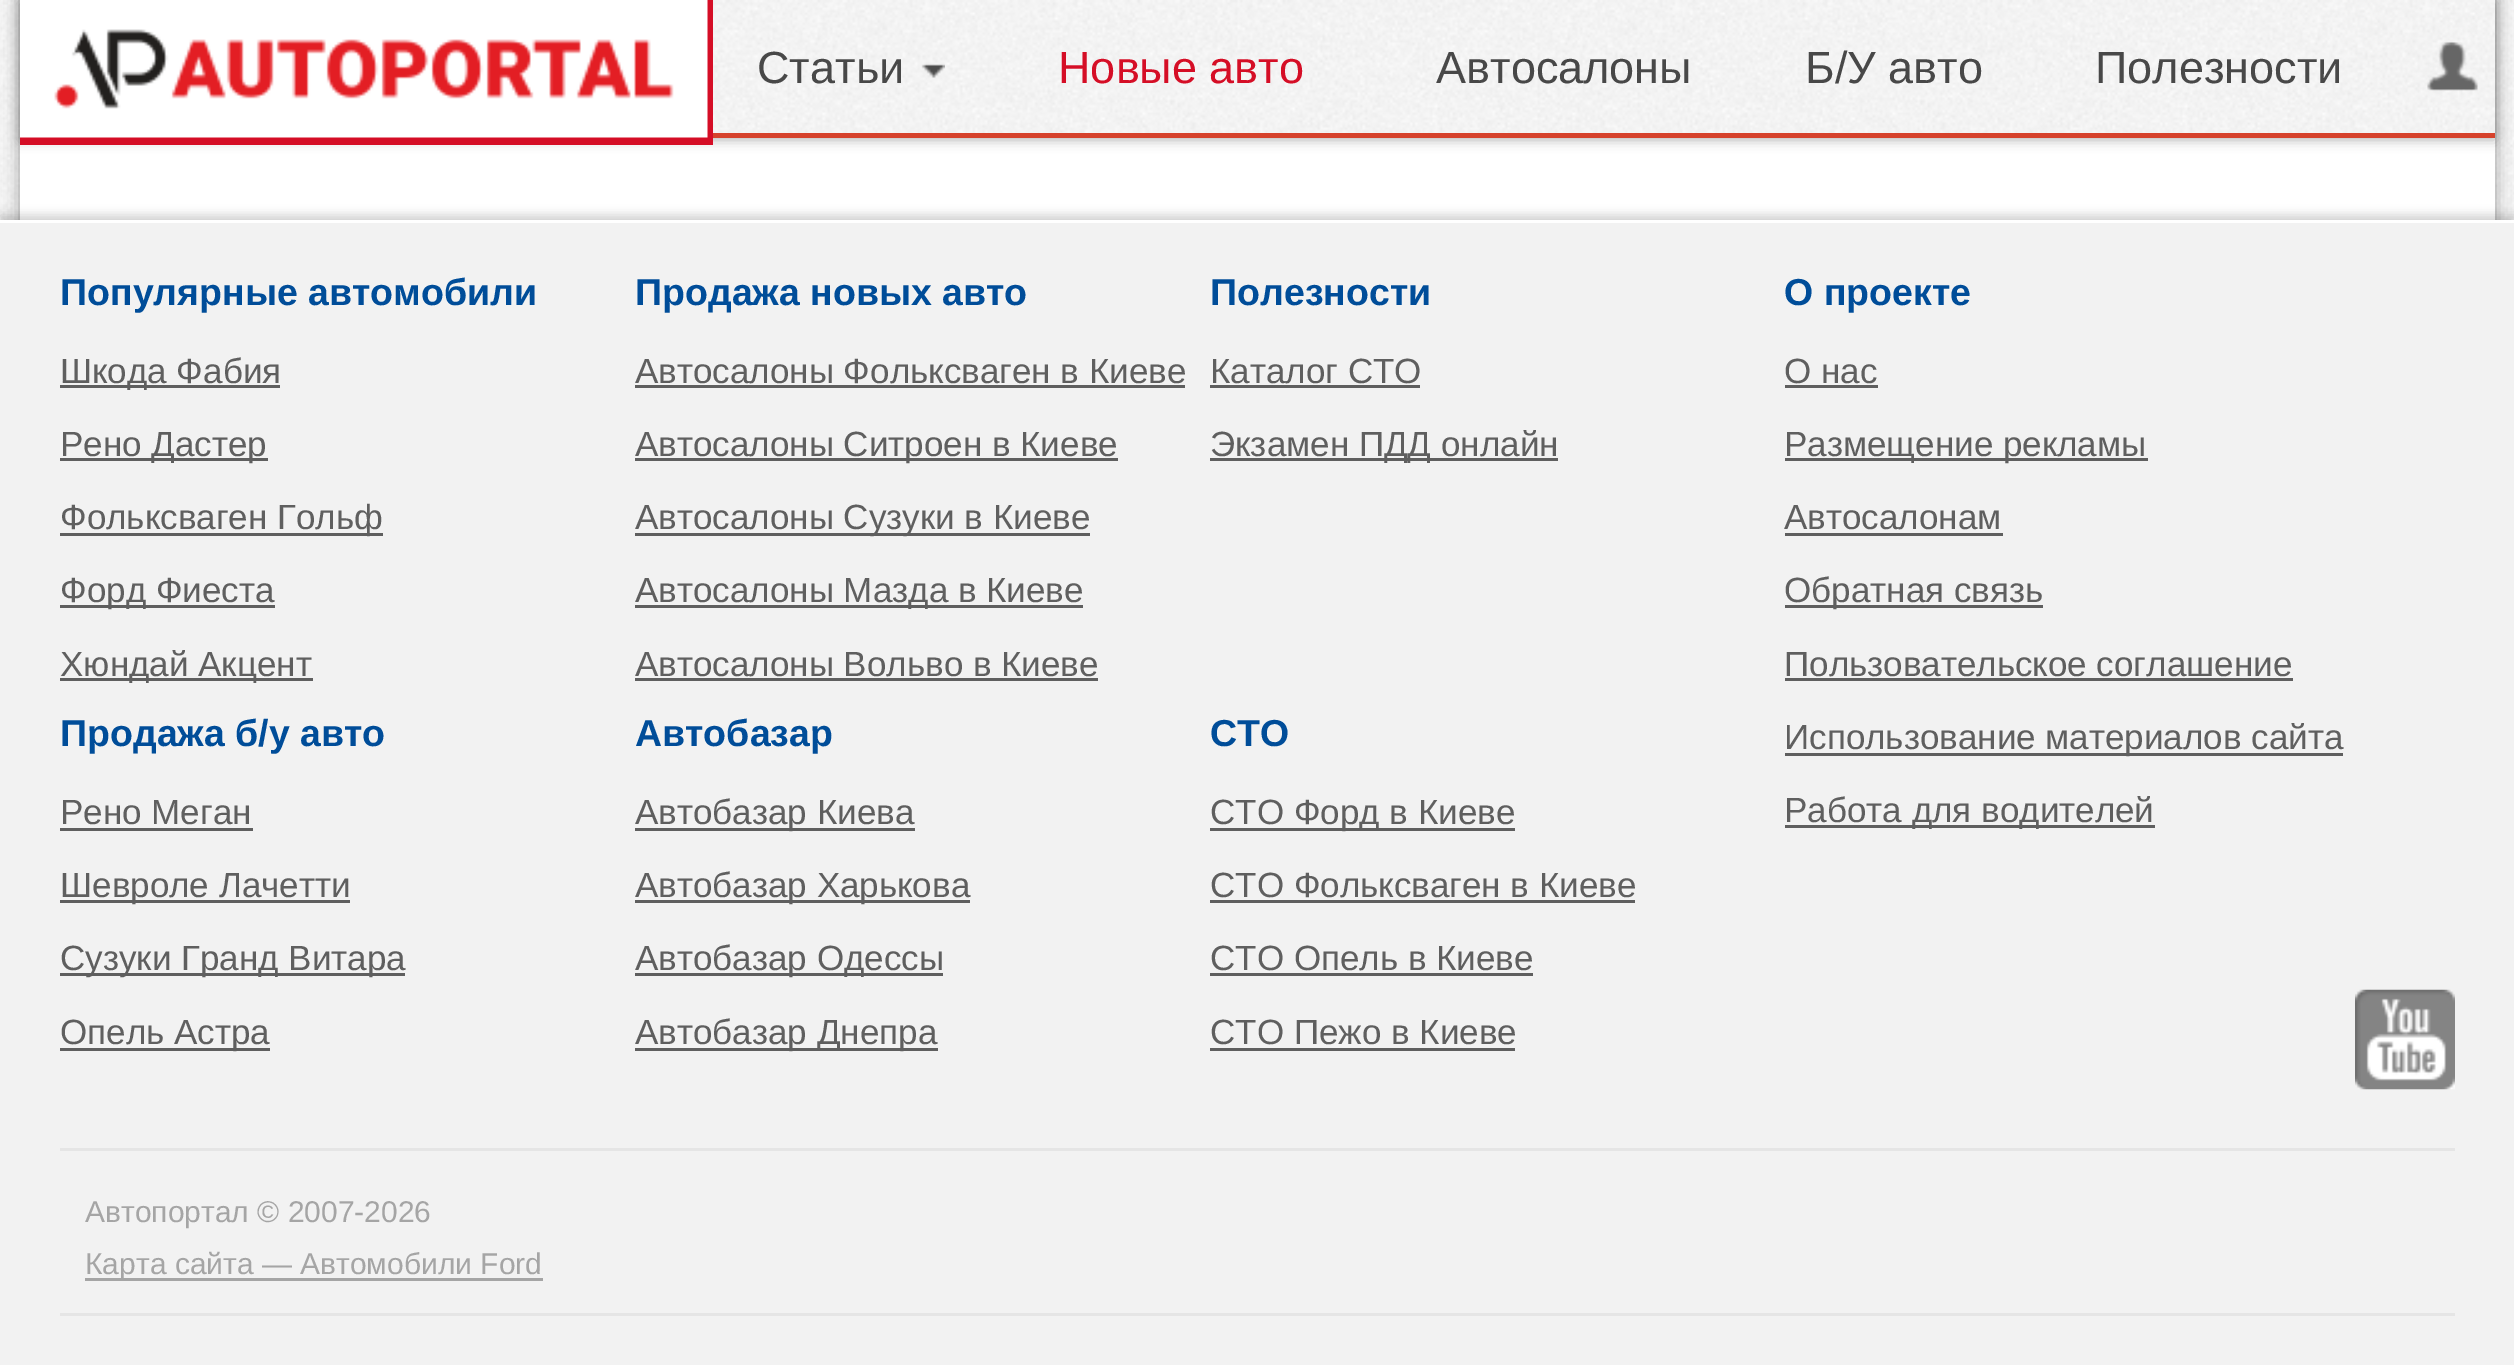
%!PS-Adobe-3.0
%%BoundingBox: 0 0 2514 1365
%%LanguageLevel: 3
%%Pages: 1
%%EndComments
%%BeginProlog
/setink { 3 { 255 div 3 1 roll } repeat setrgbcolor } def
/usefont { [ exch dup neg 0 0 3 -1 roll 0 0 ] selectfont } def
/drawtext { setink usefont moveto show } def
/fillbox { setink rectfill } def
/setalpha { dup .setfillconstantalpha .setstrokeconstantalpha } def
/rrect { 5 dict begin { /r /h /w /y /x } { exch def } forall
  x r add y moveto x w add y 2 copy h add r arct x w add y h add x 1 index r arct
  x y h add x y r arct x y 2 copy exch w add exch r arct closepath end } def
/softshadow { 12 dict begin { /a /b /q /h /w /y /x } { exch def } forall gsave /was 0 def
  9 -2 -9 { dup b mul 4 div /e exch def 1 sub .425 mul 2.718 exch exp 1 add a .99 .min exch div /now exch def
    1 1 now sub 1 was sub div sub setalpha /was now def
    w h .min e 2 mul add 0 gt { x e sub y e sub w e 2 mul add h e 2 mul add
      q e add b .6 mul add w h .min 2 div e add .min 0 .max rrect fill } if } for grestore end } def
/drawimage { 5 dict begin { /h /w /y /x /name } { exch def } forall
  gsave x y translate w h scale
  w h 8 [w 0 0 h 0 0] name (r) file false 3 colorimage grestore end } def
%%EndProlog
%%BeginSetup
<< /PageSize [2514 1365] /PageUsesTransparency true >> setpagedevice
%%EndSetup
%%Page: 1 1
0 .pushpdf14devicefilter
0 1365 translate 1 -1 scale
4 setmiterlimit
0 0 2514 1365 255 255 255 fillbox
(assets/img1.rgb) 0 0 2514 220 drawimage
0 0 0 setink
20 -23 2475 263 0 7.5 0.35 softshadow
20 138 2475 82 255 255 255 fillbox
0 0 0 setink
20 3 2475 137 0 6 0.3 softshadow
(assets/img2.rgb) 713 0 1782 133 drawimage
713 133 1782 5 214 66 44 fillbox
20 0 693 145 213 14 38 fillbox
(assets/img3.rgb) 20 0 688 138 drawimage
(Статьи) 757 83 /LiberationSans-Regular 45 72 72 72 drawtext
(assets/img4.rgb) 921 64 24 14 drawimage
(Новые авто) 1058 83 /LiberationSans-Regular 45 213 14 38 drawtext
(Автосалоны) 1436 83 /LiberationSans-Regular 45 72 72 72 drawtext
(Б/У авто) 1805 83 /LiberationSans-Regular 45 72 72 72 drawtext
(Полезности) 2095 83 /LiberationSans-Regular 45 72 72 72 drawtext
(assets/img5.rgb) 2427 42 51 49 drawimage
0 0 0 setink
0 215 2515 1145 0 5 0.18 softshadow
0 223 2514 1142 242 242 242 fillbox
0 220 2514 3 255 255 255 fillbox
(Популярные автомобили) 60 305 /LiberationSans-Bold 37.5 0 77 153 drawtext
60 385 220 3 95 95 95 fillbox
(Шкода Фабия) 60 383 /LiberationSans-Regular 35 95 95 95 drawtext
60 458 208 3 95 95 95 fillbox
(Рено Дастер) 60 456 /LiberationSans-Regular 35 95 95 95 drawtext
60 533 323 3 95 95 95 fillbox
(Фольксваген Гольф) 60 529 /LiberationSans-Regular 35 95 95 95 drawtext
60 605 215 3 95 95 95 fillbox
(Форд Фиеста) 60 602 /LiberationSans-Regular 35 95 95 95 drawtext
60 678 253 3 95 95 95 fillbox
(Хюндай Акцент) 60 676 /LiberationSans-Regular 35 95 95 95 drawtext
(Продажа б/у авто) 60 746 /LiberationSans-Bold 37.5 0 77 153 drawtext
(Рено Меган) 60 824 /LiberationSans-Regular 35 95 95 95 drawtext
60 828 193 3 95 95 95 fillbox
60 900 290 3 95 95 95 fillbox
(Шевроле Лачетти) 60 897 /LiberationSans-Regular 35 95 95 95 drawtext
60 973 345 3 95 95 95 fillbox
(Сузуки Гранд Витара) 60 970 /LiberationSans-Regular 35 95 95 95 drawtext
60 1048 210 3 95 95 95 fillbox
(Опель Астра) 60 1044 /LiberationSans-Regular 35 95 95 95 drawtext
(Продажа новых авто) 635 305 /LiberationSans-Bold 37.5 0 77 153 drawtext
(Автосалоны Фольксваген в Киеве) 635 383 /LiberationSans-Regular 35 95 95 95 drawtext
635 385 550 3 95 95 95 fillbox
635 458 483 3 95 95 95 fillbox
(Автосалоны Ситроен в Киеве) 635 456 /LiberationSans-Regular 35 95 95 95 drawtext
635 533 455 3 95 95 95 fillbox
(Автосалоны Сузуки в Киеве) 635 529 /LiberationSans-Regular 35 95 95 95 drawtext
635 605 448 3 95 95 95 fillbox
(Автосалоны Мазда в Киеве) 635 602 /LiberationSans-Regular 35 95 95 95 drawtext
(Автосалоны Вольво в Киеве) 635 676 /LiberationSans-Regular 35 95 95 95 drawtext
635 678 463 3 95 95 95 fillbox
(Автобазар) 635 746 /LiberationSans-Bold 37.5 0 77 153 drawtext
635 828 280 3 95 95 95 fillbox
(Автобазар Киева) 635 824 /LiberationSans-Regular 35 95 95 95 drawtext
635 900 335 3 95 95 95 fillbox
(Автобазар Харькова) 635 897 /LiberationSans-Regular 35 95 95 95 drawtext
635 973 308 3 95 95 95 fillbox
(Автобазар Одессы) 635 970 /LiberationSans-Regular 35 95 95 95 drawtext
635 1048 303 3 95 95 95 fillbox
(Автобазар Днепра) 635 1044 /LiberationSans-Regular 35 95 95 95 drawtext
(Полезности) 1210 305 /LiberationSans-Bold 37.5 0 77 153 drawtext
(Каталог СТО) 1210 383 /LiberationSans-Regular 35 95 95 95 drawtext
1210 385 210 3 95 95 95 fillbox
1210 458 348 3 95 95 95 fillbox
(Экзамен ПДД онлайн) 1210 456 /LiberationSans-Regular 35 95 95 95 drawtext
(СТО) 1210 746 /LiberationSans-Bold 37.5 0 77 153 drawtext
1210 828 305 3 95 95 95 fillbox
(СТО Форд в Киеве) 1210 824 /LiberationSans-Regular 35 95 95 95 drawtext
(СТО Фольксваген в Киеве) 1210 897 /LiberationSans-Regular 35 95 95 95 drawtext
1210 900 425 3 95 95 95 fillbox
(СТО Опель в Киеве) 1210 970 /LiberationSans-Regular 35 95 95 95 drawtext
1210 973 323 3 95 95 95 fillbox
(СТО Пежо в Киеве) 1210 1044 /LiberationSans-Regular 35 95 95 95 drawtext
1210 1048 305 3 95 95 95 fillbox
(О проекте) 1784 305 /LiberationSans-Bold 37.5 0 77 153 drawtext
(О нас) 1784 383 /LiberationSans-Regular 35 95 95 95 drawtext
1785 385 93 3 95 95 95 fillbox
1785 458 363 3 95 95 95 fillbox
(Размещение рекламы) 1784 456 /LiberationSans-Regular 35 95 95 95 drawtext
(Автосалонам) 1784 529 /LiberationSans-Regular 35 95 95 95 drawtext
1785 533 218 3 95 95 95 fillbox
1785 605 258 3 95 95 95 fillbox
(Обратная связь) 1784 602 /LiberationSans-Regular 35 95 95 95 drawtext
(Пользовательское соглашение) 1784 676 /LiberationSans-Regular 35 95 95 95 drawtext
1785 678 508 3 95 95 95 fillbox
1785 753 558 3 95 95 95 fillbox
(Использование материалов сайта) 1784 749 /LiberationSans-Regular 35 95 95 95 drawtext
1785 825 370 3 95 95 95 fillbox
(Работа для водителей) 1784 822 /LiberationSans-Regular 35 95 95 95 drawtext
60 1148 2395 3 229 229 229 fillbox
60 1313 2395 3 229 229 229 fillbox
(assets/img6.rgb) 2355 989 100 101 drawimage
(Автопортал © 2007-2026) 85 1222 /LiberationSans-Regular 30 165 165 165 drawtext
85 1278 458 3 165 165 165 fillbox
(Карта сайта — Автомобили Ford) 85 1274 /LiberationSans-Regular 30 165 165 165 drawtext
.poppdf14devicefilter showpage
%%EOF
